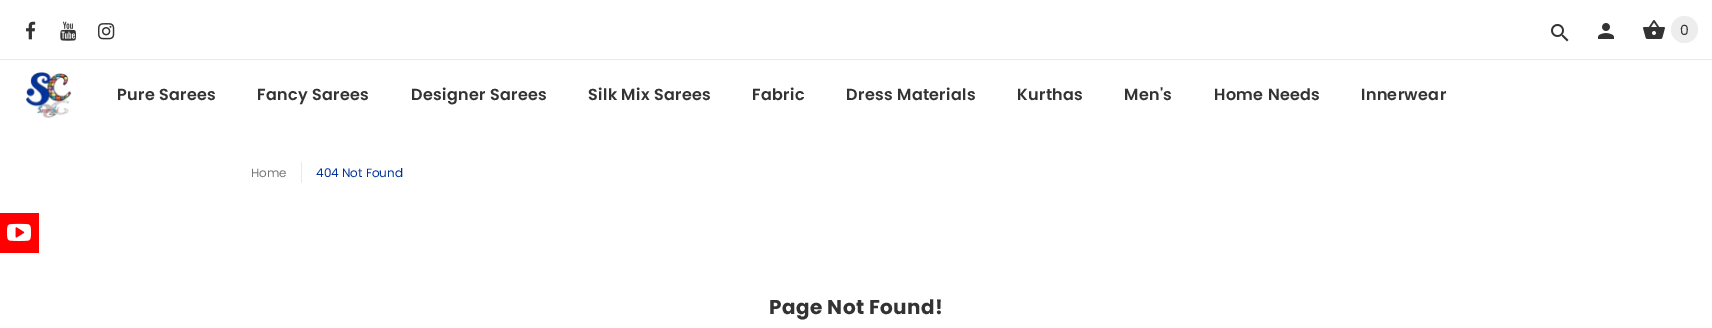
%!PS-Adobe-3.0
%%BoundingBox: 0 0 1712 328
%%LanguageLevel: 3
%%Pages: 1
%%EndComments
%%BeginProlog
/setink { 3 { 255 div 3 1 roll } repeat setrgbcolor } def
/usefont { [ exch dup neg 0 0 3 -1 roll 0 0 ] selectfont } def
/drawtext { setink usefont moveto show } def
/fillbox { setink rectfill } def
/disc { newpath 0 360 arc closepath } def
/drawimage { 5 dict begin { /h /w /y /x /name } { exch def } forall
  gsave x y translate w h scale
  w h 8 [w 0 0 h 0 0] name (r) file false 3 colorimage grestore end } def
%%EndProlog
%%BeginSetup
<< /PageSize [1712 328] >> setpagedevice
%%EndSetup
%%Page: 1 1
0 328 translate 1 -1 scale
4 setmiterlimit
0 0 1712 328 255 255 255 fillbox
(assets/img1.rgb) 26 21 10 19 drawimage
(assets/img2.rgb) 60 21 16 20 drawimage
(assets/img3.rgb) 98 23 17 17 drawimage
(assets/img4.rgb) 1551 24 18 18 drawimage
(assets/img5.rgb) 1598 23 16 16 drawimage
(assets/img6.rgb) 1643 20 22 19 drawimage
237 237 237 setink
1684.5 29.5 13.5 disc fill
(0) 1680 35 /Poppins-Regular 14 51 51 51 drawtext
0 59 1712 1 233 233 233 fillbox
(assets/img7.rgb) 25 72 47 46 drawimage
/Poppins-SemiBold 16 usefont
51 51 51 setink
117 100 moveto 0.3 0 (Pure Sarees) ashow
257 100 moveto 0.3 0 (Fancy Sarees) ashow
411 100 moveto 0.3 0 (Designer Sarees) ashow
588 100 moveto 0.3 0 (Silk Mix Sarees) ashow
752 100 moveto 0.3 0 (Fabric) ashow
846 100 moveto 0.3 0 (Dress Materials) ashow
1017 100 moveto 0.3 0 (Kurthas) ashow
1124 100 moveto 0.3 0 (Men's) ashow
1214 100 moveto 0.3 0 (Home Needs) ashow
1361 100 moveto 0.3 0 (Innerwear) ashow
301 162 1 21 233 233 233 fillbox
(Home) 251 177 /Poppins-Regular 12 119 119 119 drawtext
(404 Not Found) 316 177 /Poppins-Regular 12 0 51 153 drawtext
0 213 39 40 255 0 0 fillbox
(assets/img8.rgb) 7 223 24 18 drawimage
/Poppins-Bold 20 usefont
51 51 51 setink
769 314 moveto 0.4 0 (Page Not Found!) ashow
showpage
%%EOF
